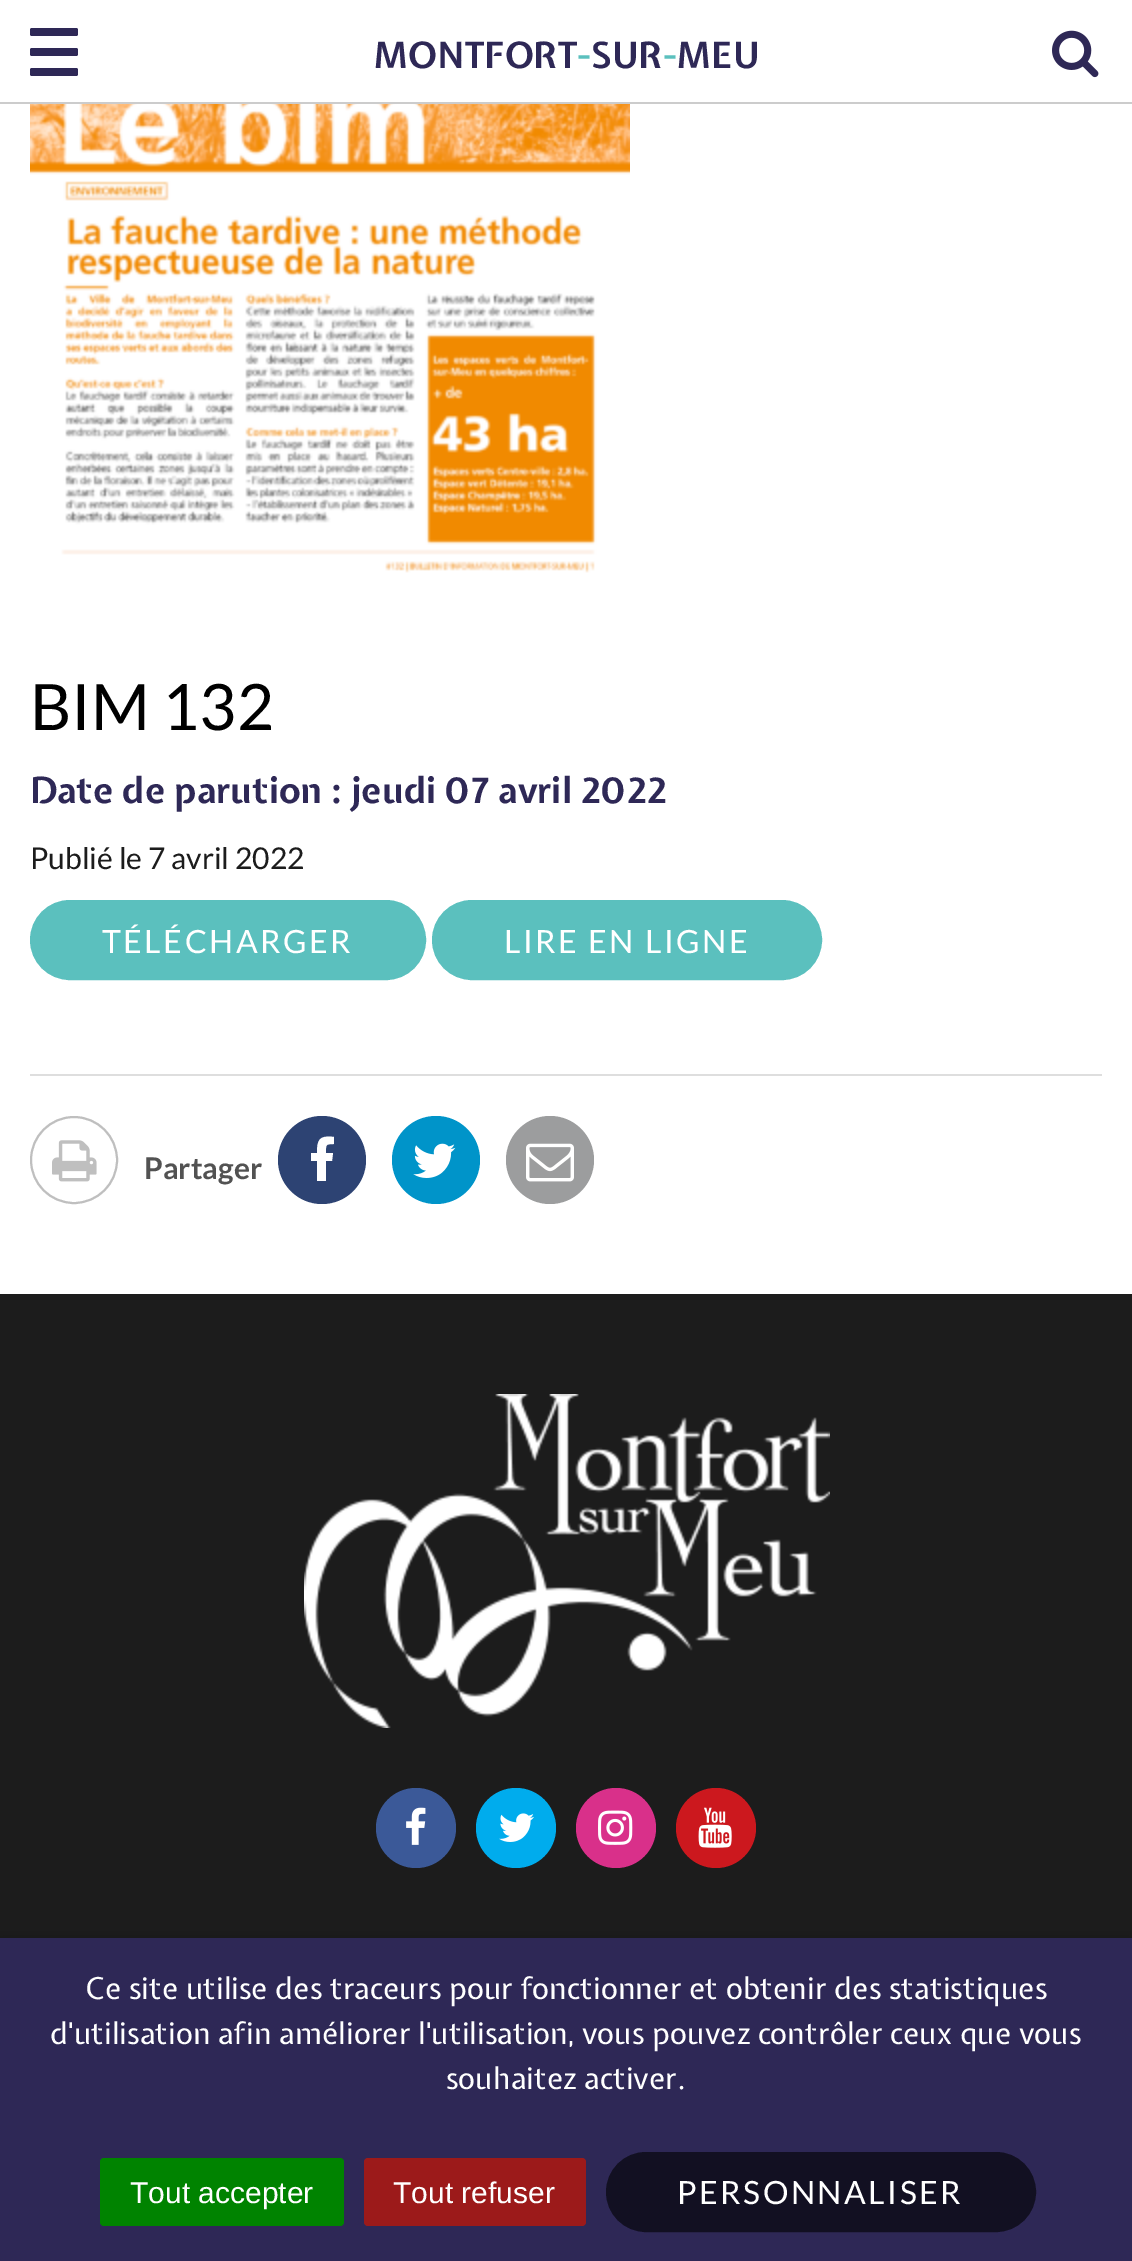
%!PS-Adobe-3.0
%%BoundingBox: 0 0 1132 2261
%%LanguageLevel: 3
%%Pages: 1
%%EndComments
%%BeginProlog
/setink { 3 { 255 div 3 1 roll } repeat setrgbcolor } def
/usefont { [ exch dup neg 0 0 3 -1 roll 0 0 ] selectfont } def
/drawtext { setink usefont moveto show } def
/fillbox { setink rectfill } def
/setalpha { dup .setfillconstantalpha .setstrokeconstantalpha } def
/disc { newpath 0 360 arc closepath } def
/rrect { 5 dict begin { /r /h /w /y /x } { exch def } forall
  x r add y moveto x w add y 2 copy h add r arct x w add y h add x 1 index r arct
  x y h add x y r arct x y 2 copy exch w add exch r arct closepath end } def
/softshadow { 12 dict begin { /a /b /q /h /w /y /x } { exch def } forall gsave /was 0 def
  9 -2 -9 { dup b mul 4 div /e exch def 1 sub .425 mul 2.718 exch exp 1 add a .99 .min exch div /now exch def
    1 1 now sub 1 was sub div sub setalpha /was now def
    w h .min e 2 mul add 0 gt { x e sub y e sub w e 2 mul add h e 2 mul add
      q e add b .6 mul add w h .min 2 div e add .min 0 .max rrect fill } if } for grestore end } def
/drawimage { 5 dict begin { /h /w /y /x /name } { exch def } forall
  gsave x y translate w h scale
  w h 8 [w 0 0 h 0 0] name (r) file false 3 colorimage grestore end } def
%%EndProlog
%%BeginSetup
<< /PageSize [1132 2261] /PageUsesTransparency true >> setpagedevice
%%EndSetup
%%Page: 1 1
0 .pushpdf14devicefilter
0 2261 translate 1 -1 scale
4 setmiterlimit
0 0 1132 2261 255 255 255 fillbox
0 102 1132 2 204 204 204 fillbox
46 40 86 setink
30 28 48 8 2 rrect fill
30 48 48 8 2 rrect fill
30 68 48 8 2 rrect fill
(MONTFORT) 373 68 /ExpletusSans-Bold 36 46 40 86 drawtext
(-) 577 68 /ExpletusSans-Bold 36 91 192 190 drawtext
(SUR) 591 68 /ExpletusSans-Bold 36 46 40 86 drawtext
(-) 663 68 /ExpletusSans-Bold 36 91 192 190 drawtext
(MEU) 676 68 /ExpletusSans-Bold 36 46 40 86 drawtext
(assets/img1.rgb) 1052 30 47 48 drawimage
(assets/img2.rgb) 30 104 600 469 drawimage
(BIM 132) 30 730 /Lato-Regular 64 0 0 0 drawtext
(Date de parution : jeudi 07 avril 2022) 30 803 /ExpletusSans-Bold 36 46 40 86 drawtext
(Publié le 7 avril 2022) 30 869 /Lato-Regular 30 28 28 28 drawtext
91 192 190 setink
31 901 394 78 39 rrect gsave fill grestore
2 setlinewidth
stroke
/Lato-Regular 32 usefont
255 255 255 setink
102 953 moveto 2.5 0 (TÉLÉCHARGER) ashow
91 192 190 setink
433 901 388 78 39 rrect gsave fill grestore
stroke
255 255 255 setink
504 953 moveto 2.5 0 (LIRE EN LIGNE) ashow
30 1074 1072 2 222 222 222 fillbox
191 191 191 setink
74 1160 43 disc stroke
(assets/img3.rgb) 52 1140 45 42 drawimage
(Partager) 144 1179 /Lato-Bold 30 82 82 82 drawtext
45 67 115 setink
322 1160 44 disc fill
255 255 255 setink
334 1137 moveto 334 1144 lineto 325 1144 326 1145 326 1153 curveto 333 1153 lineto 332 1161 lineto 326 1161 lineto 326 1181 lineto 317 1181 lineto 317 1161 lineto 311 1161 lineto 311 1153 lineto 317 1153 lineto 317 1140 319 1135 334 1137 curveto closepath fill
0 148 201 setink
436 1160 44 disc fill
(assets/img4.rgb) 413 1143 43 35 drawimage
156 157 158 setink
550 1160 44 disc fill
(assets/img5.rgb) 526 1143 48 39 drawimage
0 1294 1132 644 28 28 28 fillbox
(assets/img6.rgb) 304 1394 526 334 drawimage
59 89 152 setink
416 1828 40 disc fill
(assets/img7.rgb) 406 1807 20 38 drawimage
0 172 237 setink
516 1828 40 disc fill
(assets/img8.rgb) 499 1813 35 29 drawimage
217 48 138 setink
616 1828 40 disc fill
(assets/img9.rgb) 598 1810 35 35 drawimage
204 24 30 setink
716 1828 40 disc fill
(assets/img10.rgb) 698 1807 34 41 drawimage
0 0 0 setink
0 1948 1132 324 0 10 0.5 softshadow
0 1938 1132 323 46 40 86 fillbox
(Ce site utilise des traceurs pour fonctionner et obtenir des statistiques) 85 1999 /ExpletusSans-Regular 30 255 255 255 drawtext
(d'utilisation afin améliorer l'utilisation, vous pouvez contrôler ceux que vous) 50 2044 /ExpletusSans-Regular 30 255 255 255 drawtext
(souhaitez activer.) 446 2089 /ExpletusSans-Regular 30 255 255 255 drawtext
0 131 0 setink
100 2158 244 68 4 rrect fill
(Tout accepter) 130 2203 /LiberationSans-Regular 30 255 255 255 drawtext
156 26 26 setink
364 2158 222 68 4 rrect fill
(Tout refuser) 393 2203 /LiberationSans-Regular 30 255 255 255 drawtext
18 16 34 setink
607 2153 428 78 39 rrect gsave fill grestore
stroke
/Lato-Regular 32 usefont
255 255 255 setink
677 2204 moveto 2.5 0 (PERSONNALISER) ashow
.poppdf14devicefilter showpage
%%EOF
